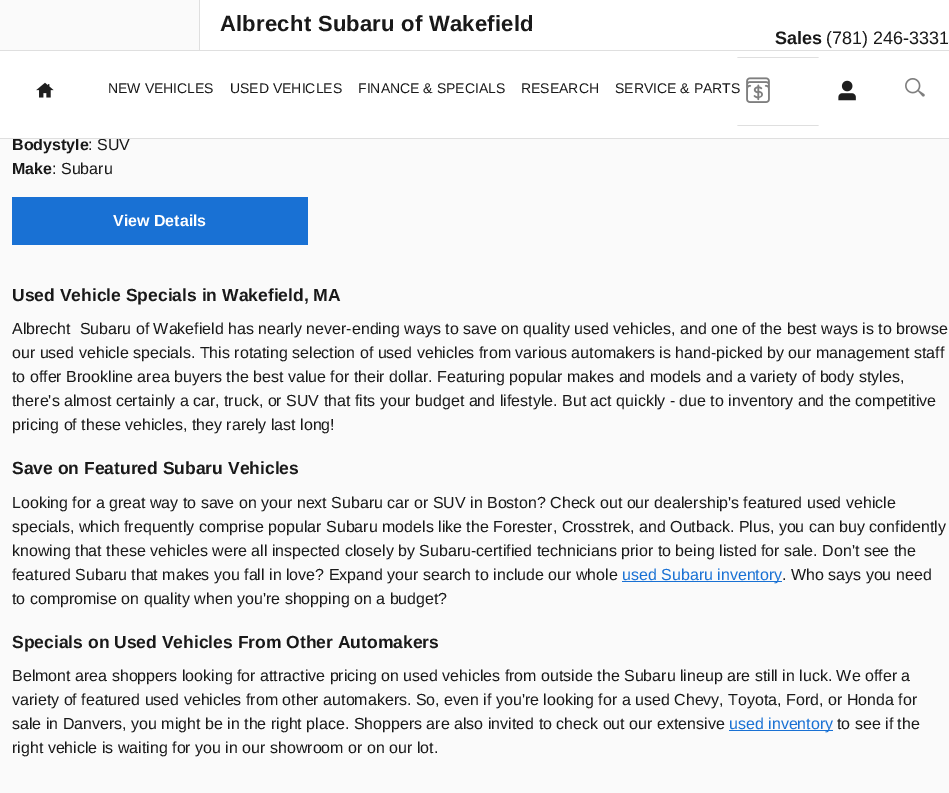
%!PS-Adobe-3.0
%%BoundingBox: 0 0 949 793
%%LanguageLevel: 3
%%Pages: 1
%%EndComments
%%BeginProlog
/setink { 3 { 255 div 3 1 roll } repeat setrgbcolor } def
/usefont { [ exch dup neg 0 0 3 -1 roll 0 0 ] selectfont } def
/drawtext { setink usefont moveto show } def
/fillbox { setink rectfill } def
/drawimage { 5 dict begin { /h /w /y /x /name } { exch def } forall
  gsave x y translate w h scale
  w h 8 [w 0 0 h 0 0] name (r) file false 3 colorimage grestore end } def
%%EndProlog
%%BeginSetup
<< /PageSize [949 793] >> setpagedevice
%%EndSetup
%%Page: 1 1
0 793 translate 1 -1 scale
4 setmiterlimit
0 0 949 793 250 250 250 fillbox
200 0 749 50 255 255 255 fillbox
199 0 1 50 223 223 223 fillbox
/LiberationSans-Bold 22 usefont
25 25 25 setink
220 31 moveto 0.25 0 (Albrecht Subaru of Wakefield) ashow
(Sales) 775 44 /LiberationSans-Bold 18 25 25 25 drawtext
(\(781\) 246-3331) 826 44 /LiberationSans-Regular 18 25 25 25 drawtext
0 51 949 87 255 255 255 fillbox
0 50 949 1 223 223 223 fillbox
(Bodystyle) 12 150 /LiberationSans-Bold 16 25 25 25 drawtext
(: SUV) 88 150 /LiberationSans-Regular 16 25 25 25 drawtext
0 138 949 1 223 223 223 fillbox
(assets/img1.rgb) 36 82 18 16 drawimage
(NEW VEHICLES) 108 93 /LiberationSans-Regular 14 25 25 25 drawtext
(USED VEHICLES) 230 93 /LiberationSans-Regular 14 25 25 25 drawtext
(FINANCE & SPECIALS) 358 93 /LiberationSans-Regular 14 25 25 25 drawtext
(RESEARCH) 521 93 /LiberationSans-Regular 14 25 25 25 drawtext
(SERVICE & PARTS) 615 93 /LiberationSans-Regular 14 25 25 25 drawtext
223 223 223 setink
737 57 moveto 819 57 lineto 818 58 lineto 738 58 lineto closepath fill
819 126 moveto 737 126 lineto 738 125 lineto 818 125 lineto closepath fill
(assets/img2.rgb) 746 77 24 26 drawimage
(assets/img3.rgb) 838 80 18 21 drawimage
(assets/img4.rgb) 905 78 20 19 drawimage
(Make) 12 174 /LiberationSans-Bold 16 25 25 25 drawtext
(: Subaru) 52 174 /LiberationSans-Regular 16 25 25 25 drawtext
12 197 296 48 25 113 212 fillbox
(View Details) 113 226 /LiberationSans-Bold 16 255 255 255 drawtext
(Used Vehicle Specials in Wakefield, MA) 12 301 /LiberationSans-Bold 17.5 25 25 25 drawtext
(Albrecht  Subaru of Wakefield has nearly never-ending ways to save on quality used vehicles, and one of the best ways is to browse) 12 334 /LiberationSans-Regular 16 25 25 25 drawtext
(our used vehicle specials. This rotating selection of used vehicles from various automakers is hand-picked by our management staff) 12 358 /LiberationSans-Regular 16 25 25 25 drawtext
(to offer Brookline area buyers the best value for their dollar. Featuring popular makes and models and a variety of body styles,) 12 382 /LiberationSans-Regular 16 25 25 25 drawtext
(there's almost certainly a car, truck, or SUV that fits your budget and lifestyle. But act quickly - due to inventory and the competitive) 12 406 /LiberationSans-Regular 16 25 25 25 drawtext
(pricing of these vehicles, they rarely last long!) 12 430 /LiberationSans-Regular 16 25 25 25 drawtext
(Save on Featured Subaru Vehicles) 12 474 /LiberationSans-Bold 17.5 25 25 25 drawtext
(Looking for a great way to save on your next Subaru car or SUV in Boston? Check out our dealership's featured used vehicle) 12 508 /LiberationSans-Regular 16 25 25 25 drawtext
(specials, which frequently comprise popular Subaru models like the Forester, Crosstrek, and Outback. Plus, you can buy confidently) 12 532 /LiberationSans-Regular 16 25 25 25 drawtext
(knowing that these vehicles were all inspected closely by Subaru-certified technicians prior to being listed for sale. Don't see the) 12 556 /LiberationSans-Regular 16 25 25 25 drawtext
(featured Subaru that makes you fall in love? Expand your search to include our whole) 12 580 /LiberationSans-Regular 16 25 25 25 drawtext
622 581 160 1 25 113 212 fillbox
(used Subaru inventory) 622 580 /LiberationSans-Regular 16 25 113 212 drawtext
(. Who says you need) 782 580 /LiberationSans-Regular 16 25 25 25 drawtext
(to compromise on quality when you're shopping on a budget?) 12 604 /LiberationSans-Regular 16 25 25 25 drawtext
(Specials on Used Vehicles From Other Automakers) 12 648 /LiberationSans-Bold 17.5 25 25 25 drawtext
(Belmont area shoppers looking for attractive pricing on used vehicles from outside the Subaru lineup are still in luck. We offer a) 12 681 /LiberationSans-Regular 16 25 25 25 drawtext
(variety of featured used vehicles from other automakers. So, even if you're looking for a used Chevy, Toyota, Ford, or Honda for) 12 705 /LiberationSans-Regular 16 25 25 25 drawtext
(sale in Danvers, you might be in the right place. Shoppers are also invited to check out our extensive) 12 729 /LiberationSans-Regular 16 25 25 25 drawtext
729 730 104 1 25 113 212 fillbox
(used inventory) 729 729 /LiberationSans-Regular 16 25 113 212 drawtext
(to see if the) 837 729 /LiberationSans-Regular 16 25 25 25 drawtext
(right vehicle is waiting for you in our showroom or on our lot.) 12 753 /LiberationSans-Regular 16 25 25 25 drawtext
showpage
%%EOF
